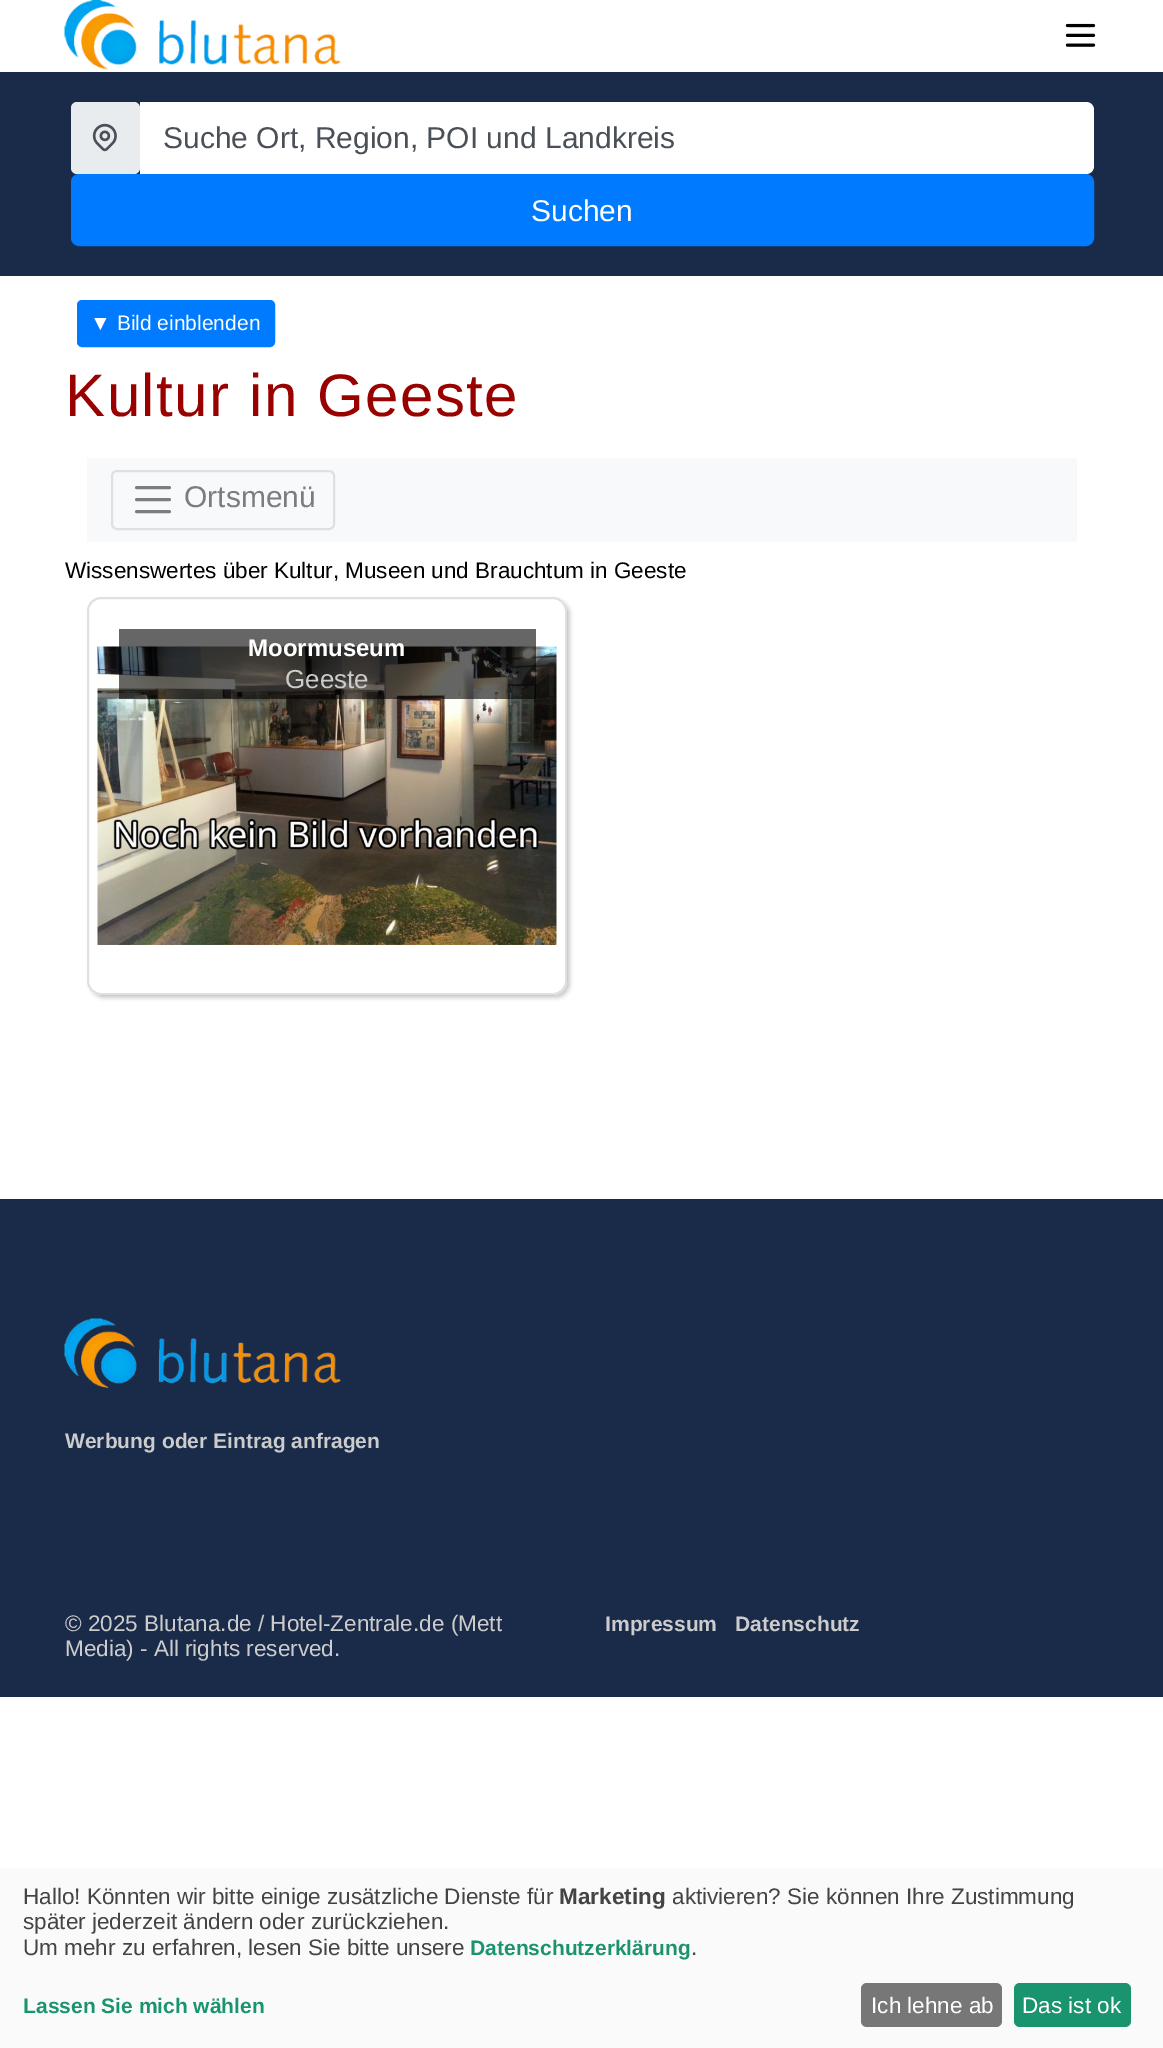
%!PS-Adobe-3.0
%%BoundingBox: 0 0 1163 2048
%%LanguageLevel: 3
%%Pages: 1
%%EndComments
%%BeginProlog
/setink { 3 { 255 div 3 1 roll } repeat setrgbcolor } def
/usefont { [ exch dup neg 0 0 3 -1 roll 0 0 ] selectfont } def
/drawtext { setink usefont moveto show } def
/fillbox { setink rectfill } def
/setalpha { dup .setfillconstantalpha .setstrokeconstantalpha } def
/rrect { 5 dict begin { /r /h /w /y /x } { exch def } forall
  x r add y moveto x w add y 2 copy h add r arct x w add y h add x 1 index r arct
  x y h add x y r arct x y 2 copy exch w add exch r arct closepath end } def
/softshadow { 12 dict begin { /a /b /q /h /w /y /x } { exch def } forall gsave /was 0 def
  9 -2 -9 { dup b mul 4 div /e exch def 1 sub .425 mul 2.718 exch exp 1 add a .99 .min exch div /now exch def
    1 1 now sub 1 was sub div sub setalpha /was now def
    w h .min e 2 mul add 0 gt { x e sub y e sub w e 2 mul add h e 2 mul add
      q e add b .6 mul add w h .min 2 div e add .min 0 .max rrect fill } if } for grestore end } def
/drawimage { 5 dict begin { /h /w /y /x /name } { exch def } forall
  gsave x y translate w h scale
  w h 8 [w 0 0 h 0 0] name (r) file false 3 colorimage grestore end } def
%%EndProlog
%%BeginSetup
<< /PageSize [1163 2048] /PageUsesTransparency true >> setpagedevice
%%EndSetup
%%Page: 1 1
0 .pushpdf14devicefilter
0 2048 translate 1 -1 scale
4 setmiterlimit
0 0 1163 2048 255 255 255 fillbox
(assets/img1.rgb) 64 0 277 70 drawimage
(assets/img2.rgb) 1065 23 31 24 drawimage
0 72 1163 204 26 43 73 fillbox
233 236 239 setink
71 102 69 72 6 rrect fill
(assets/img3.rgb) 92 123 25 29 drawimage
255 255 255 setink
140 102 moveto 1086 102 lineto 1090.5 102 1094 105.5 1094 110 curveto 1094 166 lineto 1094 170.5 1090.5 174 1086 174 curveto 140 174 lineto closepath fill
(Suche Ort, Region, POI und Landkreis) 163 148 /LiberationSans-Regular 30 73 80 87 drawtext
0 123 255 setink
72 175 1021 70 7 rrect gsave fill grestore
2 setlinewidth
stroke
(Suchen) 531 221 /LiberationSans-Regular 30 255 255 255 drawtext
0 123 255 setink
78 301 196 45 4 rrect gsave fill grestore
stroke
(▼ Bild einblenden) 90 330 /LiberationSans-Regular 21 255 255 255 drawtext
/LiberationSans-Regular 60 usefont
153 0 0 setink
65 416 moveto 1.5 0 (Kultur in Geeste) ashow
87 458 990 84 248 249 250 fillbox
223 224 225 setink
112 471 222 58 5 rrect stroke
124 125 125 setink
3 setlinewidth
1 setlinecap
136.5 487.5 moveto 169.5 487.5 lineto 136.5 499.5 moveto 169.5 499.5 lineto 136.5 511.5 moveto 169.5 511.5 lineto stroke
(Ortsmenü) 184 507 /LiberationSans-Regular 30 124 125 125 drawtext
(Wissenswertes über Kultur, Museen und Brauchtum in Geeste) 65 578 /LiberationSans-Regular 22.5 0 0 0 drawtext
204 204 204 setink
90 600 480 398 14 2 1 softshadow
255 255 255 setink
87 597 480 398 14 rrect fill
0.12 setalpha
0 0 0 setink
2 setlinewidth
0 setlinecap
88 598 478 396 13 rrect stroke
1 setalpha
(assets/img4.rgb) 97 646 460 299 drawimage
0.6 setalpha
119 629 417 70 0 0 0 fillbox
1 setalpha
(Moormuseum) 248 656 /LiberationSans-Bold 24 255 255 255 drawtext
(Geeste) 285 688 /LiberationSans-Regular 26 204 204 204 drawtext
0 1199 1163 498 26 43 73 fillbox
(assets/img5.rgb) 64 1318 277 70 drawimage
(Werbung oder Eintrag anfragen) 65 1448 /LiberationSans-Bold 21 204 204 204 drawtext
(© 2025 Blutana.de / Hotel-Zentrale.de \(Mett) 65 1631 /LiberationSans-Regular 22.5 204 204 204 drawtext
(Media\) - All rights reserved.) 65 1656 /LiberationSans-Regular 22.5 204 204 204 drawtext
(Impressum) 605 1631 /LiberationSans-Bold 21 204 204 204 drawtext
(Datenschutz) 735 1631 /LiberationSans-Bold 21 204 204 204 drawtext
0 1868 1163 180 250 250 250 fillbox
(Hallo! Könnten wir bitte einige zusätzliche Dienste für) 23 1904 /LiberationSans-Regular 22.5 68 68 68 drawtext
(Marketing) 559 1904 /LiberationSans-Bold 22.5 68 68 68 drawtext
(aktivieren? Sie können Ihre Zustimmung) 672 1904 /LiberationSans-Regular 22.5 68 68 68 drawtext
(später jederzeit ändern oder zurückziehen.) 23 1929 /LiberationSans-Regular 22.5 68 68 68 drawtext
(Um mehr zu erfahren, lesen Sie bitte unsere) 23 1955 /LiberationSans-Regular 22.5 68 68 68 drawtext
(Datenschutzerklärung) 470 1955 /LiberationSans-Bold 21 26 147 111 drawtext
(.) 691 1955 /LiberationSans-Regular 22.5 68 68 68 drawtext
(Lassen Sie mich wählen) 23 2013 /LiberationSans-Bold 21 26 147 111 drawtext
119 119 119 setink
861 1983 141 44 6 rrect fill
(Ich lehne ab) 871 2013 /LiberationSans-Regular 22.5 255 255 255 drawtext
26 147 111 setink
1014 1983 117 44 6 rrect fill
(Das ist ok) 1022 2013 /LiberationSans-Regular 22.5 255 255 255 drawtext
.poppdf14devicefilter showpage
%%EOF
